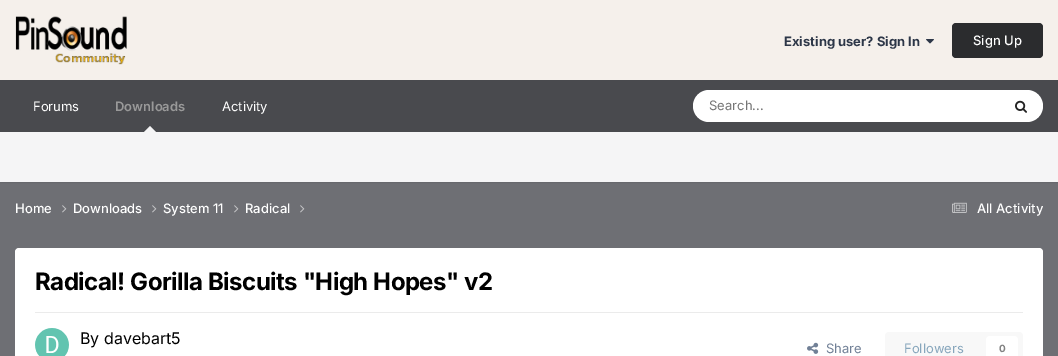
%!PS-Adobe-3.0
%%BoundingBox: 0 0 1058 356
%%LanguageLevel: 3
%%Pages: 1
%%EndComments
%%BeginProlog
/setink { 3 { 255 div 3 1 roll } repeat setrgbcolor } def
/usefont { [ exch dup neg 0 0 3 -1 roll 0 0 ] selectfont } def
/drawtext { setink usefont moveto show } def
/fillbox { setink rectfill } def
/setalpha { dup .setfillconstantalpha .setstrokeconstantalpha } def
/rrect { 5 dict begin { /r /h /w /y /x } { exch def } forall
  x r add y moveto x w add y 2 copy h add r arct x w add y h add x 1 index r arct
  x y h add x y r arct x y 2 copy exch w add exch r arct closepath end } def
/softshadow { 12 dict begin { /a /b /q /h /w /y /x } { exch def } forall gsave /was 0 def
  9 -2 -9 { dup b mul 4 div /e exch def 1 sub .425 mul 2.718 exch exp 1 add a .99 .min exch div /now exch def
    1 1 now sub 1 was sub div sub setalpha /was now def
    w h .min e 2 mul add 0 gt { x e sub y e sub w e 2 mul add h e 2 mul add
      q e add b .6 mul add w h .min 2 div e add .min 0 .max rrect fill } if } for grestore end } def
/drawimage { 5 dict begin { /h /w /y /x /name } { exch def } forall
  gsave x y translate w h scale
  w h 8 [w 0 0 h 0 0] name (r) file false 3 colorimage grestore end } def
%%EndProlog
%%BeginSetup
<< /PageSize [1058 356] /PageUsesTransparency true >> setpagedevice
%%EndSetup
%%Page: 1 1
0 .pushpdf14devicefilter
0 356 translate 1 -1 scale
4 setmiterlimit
0 0 1058 356 255 255 255 fillbox
gsave 0 182 moveto 1058 182 lineto 1058 356 lineto 0 356 lineto closepath clip newpath
<< /ShadingType 2 /ColorSpace /DeviceRGB /Coords [529 0 529 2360] /Extend [true true] /Function << /FunctionType 3 /Domain [0 1] /Functions [<< /FunctionType 2 /Domain [0 1] /C0 [0.431 0.435 0.455] /C1 [0.431 0.435 0.455] /N 1 >> << /FunctionType 2 /Domain [0 1] /C0 [0.431 0.435 0.455] /C1 [0.306 0.31 0.325] /N 1 >> << /FunctionType 2 /Domain [0 1] /C0 [0.306 0.31 0.325] /C1 [0.306 0.31 0.325] /N 1 >>] /Bounds [0.39 0.76] /Encode [0 1 0 1 0 1] >> >> shfill grestore
0 0 1058 80 245 240 235 fillbox
(assets/img1.rgb) 15 16 112 49 drawimage
(Existing user? Sign In) 784 46 /Inter-Bold 13 45 55 72 drawtext
(assets/img2.rgb) 926 39 8 5 drawimage
43 44 46 setink
952 23 91 35 4 rrect fill
(Sign Up) 973 45 /Inter-Medium 13 255 255 255 drawtext
0 80 1058 52 73 74 78 fillbox
(Forums) 33 111 /Inter-Regular 13 255 255 255 drawtext
(Downloads) 115 111 /Inter-SemiBold 13 153 153 153 drawtext
0 0 0 setink
0 133 1058 50 0 1 0.1 softshadow
245 245 246 setink
156 132 moveto 144 132 lineto 150 126 lineto closepath fill
(Activity) 222 111 /Inter-Regular 13 255 255 255 drawtext
693 90 350 32 16 rrect fill
(Search...) 709 110 /Inter-Regular 13 117 117 117 drawtext
(assets/img3.rgb) 1015 100 12 13 drawimage
0 132 1058 50 245 245 246 fillbox
(Home) 15 213 /Inter-Medium 13 255 255 255 drawtext
(assets/img4.rgb) 62 205 5 8 drawimage
(Downloads) 73 213 /Inter-Medium 13 255 255 255 drawtext
(assets/img4.rgb) 152 205 5 8 drawimage
(System 11) 163 213 /Inter-Medium 13 255 255 255 drawtext
(assets/img4.rgb) 234 205 5 8 drawimage
(Radical) 245 213 /Inter-Medium 13 255 255 255 drawtext
(assets/img4.rgb) 300 205 5 8 drawimage
(assets/img5.rgb) 952 202 15 11 drawimage
(All Activity) 977 213 /Inter-Medium 13 255 255 255 drawtext
15 248 1028 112 4 rrect fill
/Inter-Bold 24 usefont
0 0 0 setink
35 290 moveto -0.5 0 (Radical! Gorilla Biscuits "High Hopes" v2) ashow
35 312 988 1 235 235 235 fillbox
(assets/img6.rgb) 35 328 34 28 drawimage
(By davebart5) 80 344 /Inter-Regular 16 0 0 0 drawtext
(assets/img7.rgb) 807 342 12 12 drawimage
(Share) 826 353 /Inter-Regular 13 113 128 150 drawtext
248 248 248 setink
885 332 138 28 4 rrect fill
(Followers) 904 353 /Inter-Regular 13 135 166 188 drawtext
255 255 255 setink
986 336 32 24 4 rrect fill
(0) 999 352 /Inter-Bold 10 130 130 130 drawtext
.poppdf14devicefilter showpage
%%EOF
